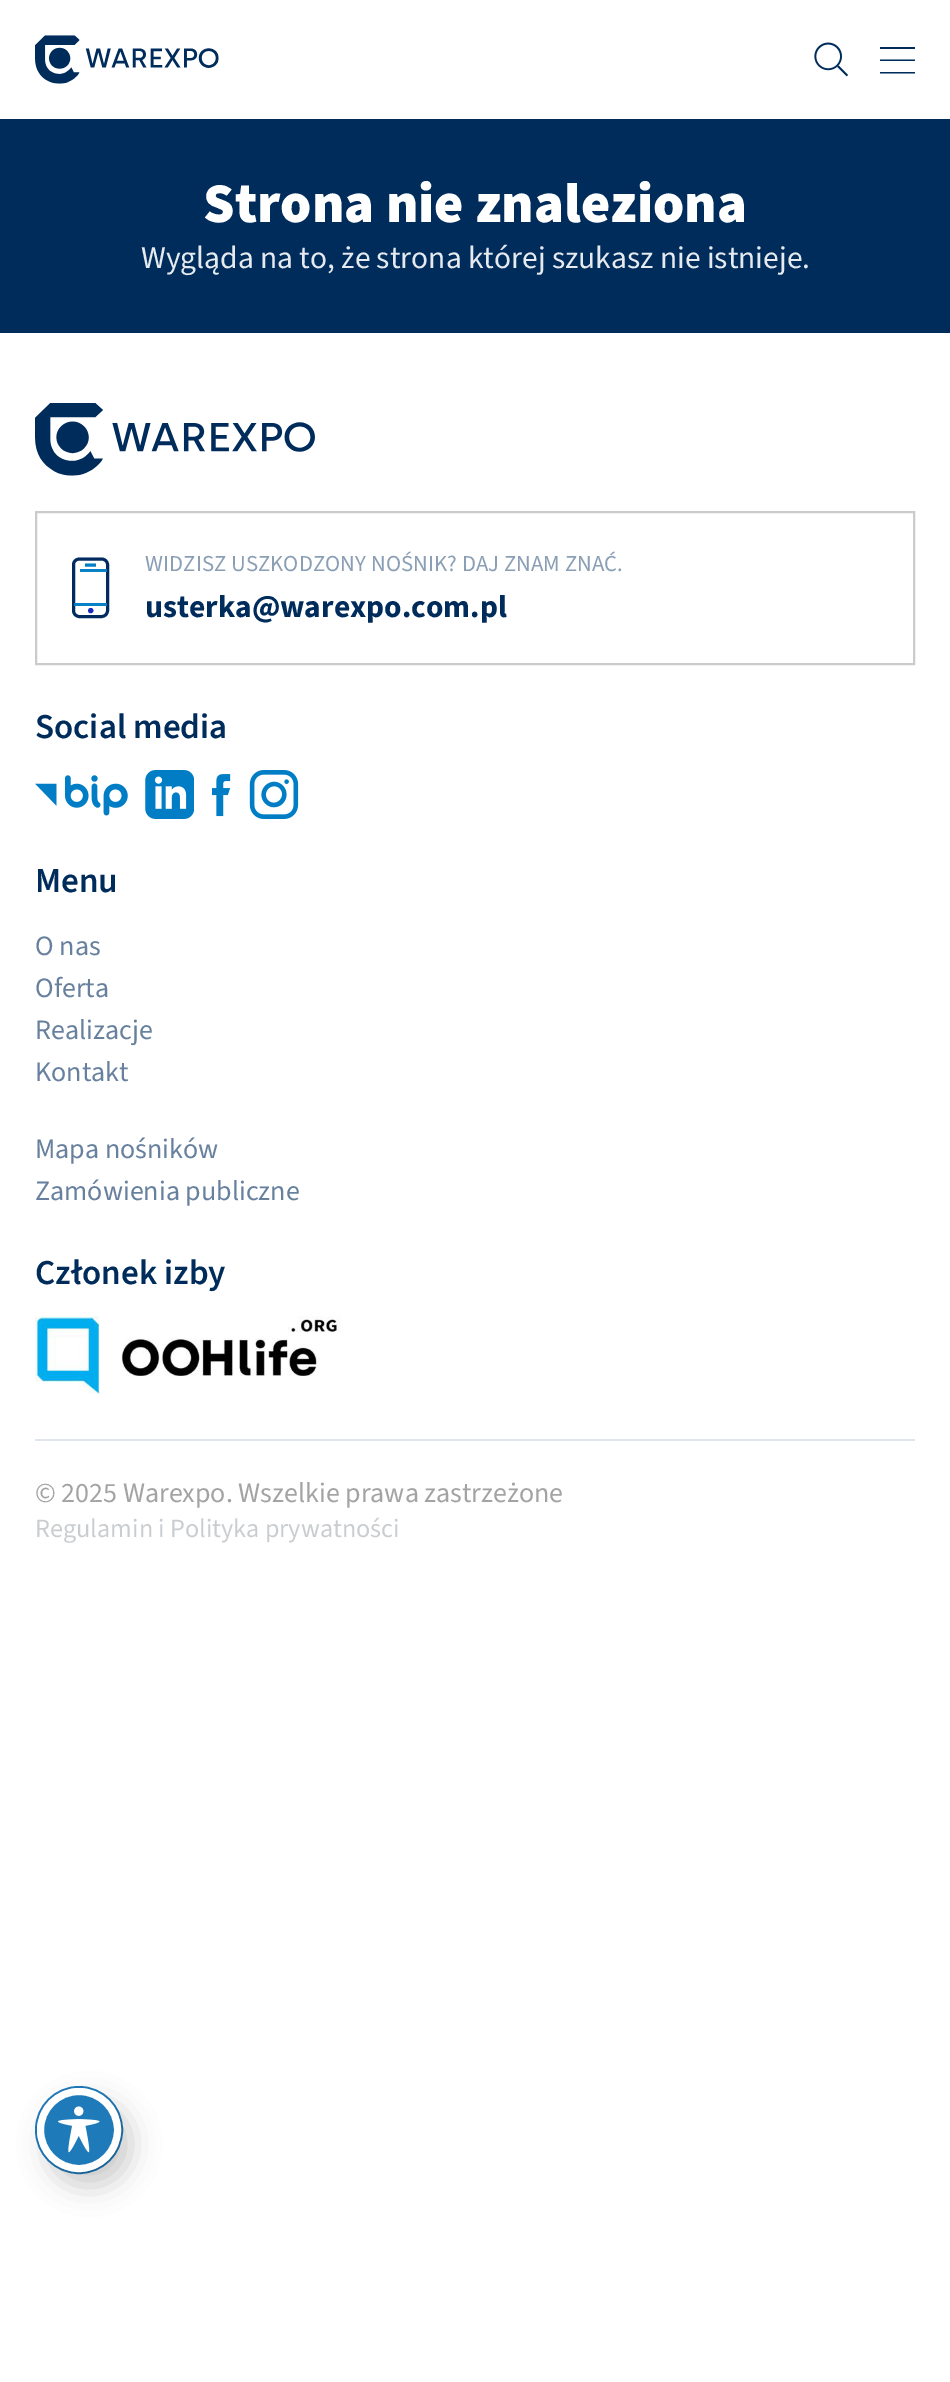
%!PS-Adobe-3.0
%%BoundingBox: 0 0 950 2382
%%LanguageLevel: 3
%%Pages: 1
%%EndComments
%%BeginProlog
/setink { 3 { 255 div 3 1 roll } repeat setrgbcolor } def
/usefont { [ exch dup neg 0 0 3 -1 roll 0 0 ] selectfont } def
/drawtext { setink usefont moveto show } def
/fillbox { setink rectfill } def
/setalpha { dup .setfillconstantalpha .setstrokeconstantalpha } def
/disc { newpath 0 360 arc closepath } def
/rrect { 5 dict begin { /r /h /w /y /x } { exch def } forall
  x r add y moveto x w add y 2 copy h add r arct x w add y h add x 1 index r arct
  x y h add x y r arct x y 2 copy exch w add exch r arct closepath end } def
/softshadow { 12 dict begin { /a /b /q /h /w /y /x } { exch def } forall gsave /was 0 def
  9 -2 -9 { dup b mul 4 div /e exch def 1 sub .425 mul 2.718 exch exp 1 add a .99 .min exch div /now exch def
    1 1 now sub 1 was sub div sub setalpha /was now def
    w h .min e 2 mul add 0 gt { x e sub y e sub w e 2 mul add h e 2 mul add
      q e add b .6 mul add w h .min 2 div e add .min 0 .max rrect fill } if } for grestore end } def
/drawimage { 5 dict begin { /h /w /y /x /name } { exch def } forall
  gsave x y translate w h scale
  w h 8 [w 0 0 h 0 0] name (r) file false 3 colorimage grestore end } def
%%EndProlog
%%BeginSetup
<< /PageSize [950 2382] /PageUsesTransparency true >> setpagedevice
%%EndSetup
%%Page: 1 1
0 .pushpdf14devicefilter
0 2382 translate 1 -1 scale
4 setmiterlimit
0 0 950 2382 255 255 255 fillbox
(assets/img1.rgb) 35 35 184 49 drawimage
(assets/img2.rgb) 814 42 35 35 drawimage
0 44 92 setink
880 72 moveto 915 72 lineto 915 73.5 lineto 880 73.5 lineto closepath 880 59.5 moveto 915 59.5 lineto 915 61 lineto 880 61 lineto closepath 880 47 moveto 915 47 lineto 915 49 lineto 880 49 lineto closepath fill
0 119 950 214 0 44 92 fillbox
(Strona nie znaleziona) 203 222 /SourceSans3-Black 56 255 255 255 drawtext
(Wygląda na to, że strona której szukasz nie istnieje.) 141 268 /SourceSans3-Regular 31.5 230 234 239 drawtext
(assets/img3.rgb) 35 403 280 73 drawimage
203 203 203 setink
2 setlinewidth
36 512 878 152 rectstroke
1 42 96 setink
2.9 setlinewidth
107.5 564.5 moveto 107.5 610.5 lineto 107.5 614 105 616.5 101.5 616.5 curveto 79.5 616.5 lineto 76 616.5 73.5 614 73.5 610.5 curveto 73.5 564.5 lineto 73.5 561.5 76 559 79.5 559 curveto 101.5 559 lineto 105 559 107.5 561.5 107.5 564.5 curveto closepath stroke
0 125 197 setink
85 565 moveto 96 565 lineto stroke
21 42 190 setink
90.7 610.6 2.6 disc fill
0.97 setalpha
80 569 27 3 0 125 197 fillbox
74 603 33 3 0 125 197 fillbox
/SourceSans3-Regular 22.75 usefont
1 setalpha
138 158 180 setink
145 571 moveto 0.1 0 (WIDZISZ USZKODZONY NOŚNIK? DAJ ZNAM ZNAĆ.) ashow
(usterka@warexpo.com.pl) 145 617 /SourceSans3-Bold 31.5 0 44 92 drawtext
(Social media) 35 738 /SourceSans3-SemiBold 35 0 44 92 drawtext
(assets/img4.rgb) 35 775 93 41 drawimage
(assets/img5.rgb) 145 770 49 49 drawimage
(assets/img6.rgb) 212 774 19 43 drawimage
(assets/img7.rgb) 249 770 50 49 drawimage
(Menu) 35 892 /SourceSans3-SemiBold 35 0 44 92 drawtext
(O nas) 35 955 /SourceSans3-Regular 28 102 128 157 drawtext
(Oferta) 35 997 /SourceSans3-Regular 28 102 128 157 drawtext
(Realizacje) 35 1039 /SourceSans3-Regular 28 102 128 157 drawtext
(Kontakt) 35 1081 /SourceSans3-Regular 28 102 128 157 drawtext
(Mapa nośników) 35 1158 /SourceSans3-Regular 28 102 128 157 drawtext
(Zamówienia publiczne) 35 1200 /SourceSans3-Regular 28 102 128 157 drawtext
(Członek izby) 35 1284 /SourceSans3-SemiBold 35 0 44 92 drawtext
(assets/img8.rgb) 35 1316 306 78 drawimage
35 1439 880 2 224 230 235 fillbox
(© 2025 Warexpo. Wszelkie prawa zastrzeżone) 35 1502 /SourceSans3-Regular 28 163 163 163 drawtext
(Regulamin i Polityka prywatności) 35 1537 /SourceSans3-Regular 26.25 202 205 208 drawtext
30 122 185 setink
2 setlinewidth
79 2130 43 disc stroke
0 0 0 setink
47 2102 84 84 42 14 0.2 softshadow
30 122 185 setink
79 2130 38.5 disc gsave fill grestore
255 255 255 setink
7 setlinewidth
stroke
(assets/img9.rgb) 58 2106 42 47 drawimage
.poppdf14devicefilter showpage
%%EOF
